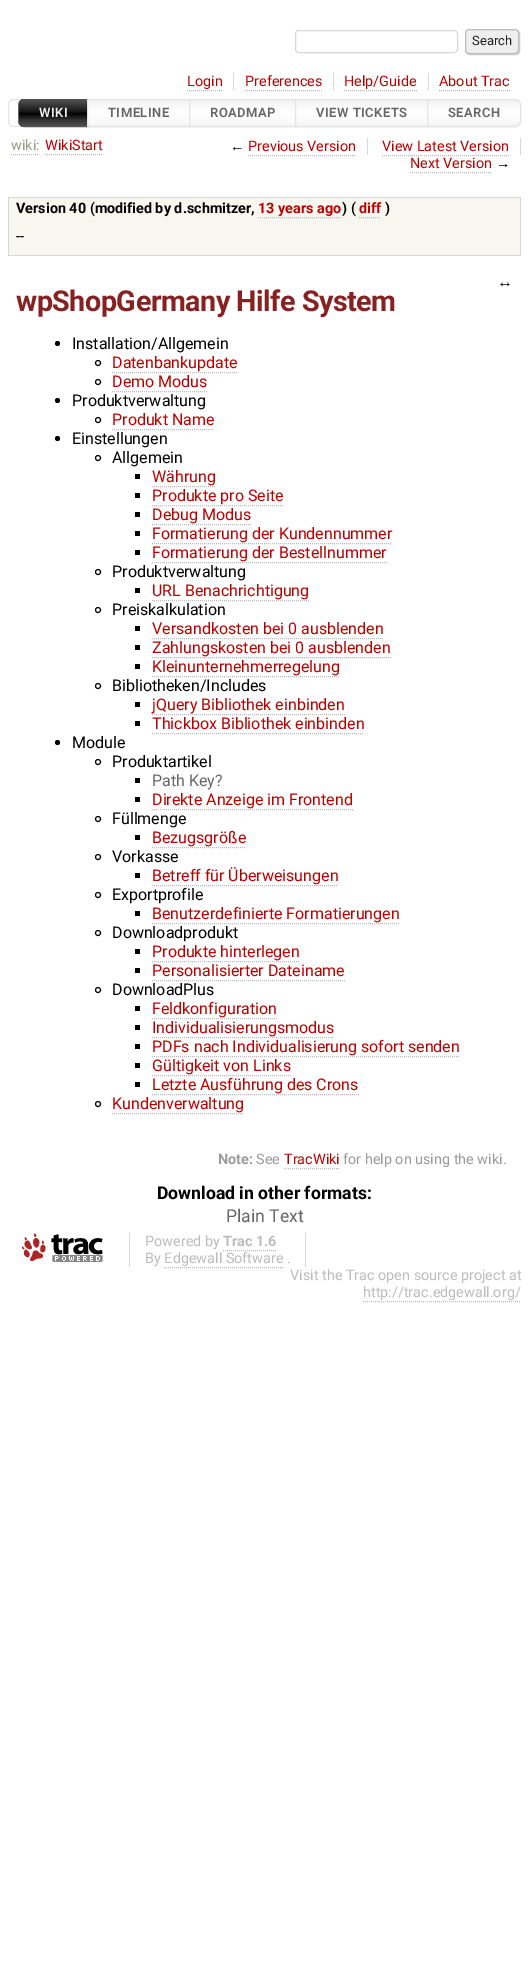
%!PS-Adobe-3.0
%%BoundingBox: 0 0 529 1962
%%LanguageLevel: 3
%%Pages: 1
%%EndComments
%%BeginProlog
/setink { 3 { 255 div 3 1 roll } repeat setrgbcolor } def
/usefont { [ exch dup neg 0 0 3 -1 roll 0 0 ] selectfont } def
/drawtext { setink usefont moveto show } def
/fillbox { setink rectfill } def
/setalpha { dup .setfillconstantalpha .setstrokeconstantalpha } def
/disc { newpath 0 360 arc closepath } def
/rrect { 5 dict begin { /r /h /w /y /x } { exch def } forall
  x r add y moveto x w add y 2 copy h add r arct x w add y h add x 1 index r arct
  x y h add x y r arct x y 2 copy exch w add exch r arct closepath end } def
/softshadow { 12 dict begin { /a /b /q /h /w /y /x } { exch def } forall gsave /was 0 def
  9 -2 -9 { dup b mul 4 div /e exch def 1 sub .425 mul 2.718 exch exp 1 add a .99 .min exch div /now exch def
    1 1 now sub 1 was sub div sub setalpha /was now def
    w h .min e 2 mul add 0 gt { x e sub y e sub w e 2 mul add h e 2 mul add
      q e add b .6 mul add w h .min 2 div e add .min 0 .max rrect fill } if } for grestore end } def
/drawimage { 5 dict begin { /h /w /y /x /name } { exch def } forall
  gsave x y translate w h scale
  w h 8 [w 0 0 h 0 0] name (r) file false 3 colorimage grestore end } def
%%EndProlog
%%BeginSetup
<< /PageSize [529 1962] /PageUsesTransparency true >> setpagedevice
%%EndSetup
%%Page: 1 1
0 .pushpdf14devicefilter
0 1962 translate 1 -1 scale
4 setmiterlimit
0 0 529 1962 255 255 255 fillbox
215 215 215 setink
295.5 30.5 162 22 3.5 rrect stroke
204 204 204 setink
466 30 54 25 4 0.5 1 softshadow
238 238 238 setink
465.5 29.5 53 24 3.5 rrect gsave fill grestore
187 187 187 setink
stroke
(Search) 472 45 /Roboto-Regular 13 34 34 34 drawtext
233 73 1 17 215 215 215 fillbox
(Login) 187 86 /Roboto-Regular 14.4 187 0 0 drawtext
187 187 187 setink
[1 1] 0 setdash
187 90.5 moveto 222 90.5 lineto stroke
333 73 1 17 215 215 215 fillbox
(Preferences) 245 86 /Roboto-Regular 14.4 187 0 0 drawtext
187 187 187 setink
245 90.5 moveto 322 90.5 lineto stroke
428 73 1 17 215 215 215 fillbox
(Help/Guide) 344 86 /Roboto-Regular 14.4 187 0 0 drawtext
187 187 187 setink
344 90.5 moveto 417 90.5 lineto stroke
(About Trac) 439 86 /Roboto-Regular 14.4 187 0 0 drawtext
187 187 187 setink
439 90.5 moveto 510 90.5 lineto stroke
228 228 228 setink
[] 0 setdash
8.5 99.5 512 27 5.5 rrect stroke
102 102 102 setink
24 99.5 moveto 88.5 99.5 lineto 88.5 126.5 lineto 24 126.5 lineto 21 126.5 18.5 124 18.5 121 curveto 18.5 105 lineto 18.5 102 21 99.5 24 99.5 curveto closepath stroke
gsave 25 99 moveto 88 99 lineto 88 127 lineto 25 127 lineto 21.5 127 19 124.5 19 121 curveto 19 105 lineto 19 101.5 21.5 99 25 99 curveto closepath clip newpath
<< /ShadingType 2 /ColorSpace /DeviceRGB /Coords [54 99 54 127] /Extend [true true] /Function << /FunctionType 3 /Domain [0 1] /Functions [<< /FunctionType 2 /Domain [0 1] /C0 [0.333 0.333 0.333] /C1 [0.2 0.2 0.2] /N 1 >> << /FunctionType 2 /Domain [0 1] /C0 [0.2 0.2 0.2] /C1 [0.067 0.067 0.067] /N 1 >> << /FunctionType 2 /Domain [0 1] /C0 [0.067 0.067 0.067] /C1 [0 0 0] /N 1 >> << /FunctionType 2 /Domain [0 1] /C0 [0 0 0] /C1 [0.2 0.2 0.2] /N 1 >> << /FunctionType 2 /Domain [0 1] /C0 [0.2 0.2 0.2] /C1 [0.333 0.333 0.333] /N 1 >>] /Bounds [0.25 0.49 0.51 0.75] /Encode [0 1 0 1 0 1 0 1 0 1] >> >> shfill grestore
/Roboto-SemiBold 13 usefont
238 238 238 setink
39 117 moveto 0.5 0 (WIKI) ashow
gsave 88 100 moveto 189 100 lineto 189 126 lineto 88 126 lineto closepath clip newpath
<< /ShadingType 2 /ColorSpace /DeviceRGB /Coords [139 100 139 126] /Extend [true true] /Function << /FunctionType 3 /Domain [0 1] /Functions [<< /FunctionType 2 /Domain [0 1] /C0 [0.949 0.949 0.949] /C1 [0.98 0.98 0.98] /N 1 >> << /FunctionType 2 /Domain [0 1] /C0 [0.98 0.98 0.98] /C1 [0.996 0.996 0.996] /N 1 >> << /FunctionType 2 /Domain [0 1] /C0 [0.996 0.996 0.996] /C1 [1 1 1] /N 1 >> << /FunctionType 2 /Domain [0 1] /C0 [1 1 1] /C1 [0.98 0.98 0.98] /N 1 >> << /FunctionType 2 /Domain [0 1] /C0 [0.98 0.98 0.98] /C1 [0.949 0.949 0.949] /N 1 >>] /Bounds [0.25 0.49 0.51 0.85] /Encode [0 1 0 1 0 1 0 1 0 1] >> >> shfill grestore
228 228 228 setink
87.5 99.5 102 27 rectstroke
102 102 102 setink
108 117 moveto 0.5 0 (TIMELINE) ashow
gsave 190 100 moveto 295 100 lineto 295 126 lineto 190 126 lineto closepath clip newpath
<< /ShadingType 2 /ColorSpace /DeviceRGB /Coords [243 100 243 126] /Extend [true true] /Function << /FunctionType 3 /Domain [0 1] /Functions [<< /FunctionType 2 /Domain [0 1] /C0 [0.949 0.949 0.949] /C1 [0.98 0.98 0.98] /N 1 >> << /FunctionType 2 /Domain [0 1] /C0 [0.98 0.98 0.98] /C1 [0.996 0.996 0.996] /N 1 >> << /FunctionType 2 /Domain [0 1] /C0 [0.996 0.996 0.996] /C1 [1 1 1] /N 1 >> << /FunctionType 2 /Domain [0 1] /C0 [1 1 1] /C1 [0.98 0.98 0.98] /N 1 >> << /FunctionType 2 /Domain [0 1] /C0 [0.98 0.98 0.98] /C1 [0.949 0.949 0.949] /N 1 >>] /Bounds [0.25 0.49 0.51 0.85] /Encode [0 1 0 1 0 1 0 1 0 1] >> >> shfill grestore
228 228 228 setink
189.5 99.5 107 27 rectstroke
102 102 102 setink
210 117 moveto 0.5 0 (ROADMAP) ashow
gsave 296 100 moveto 427 100 lineto 427 126 lineto 296 126 lineto closepath clip newpath
<< /ShadingType 2 /ColorSpace /DeviceRGB /Coords [362 100 362 126] /Extend [true true] /Function << /FunctionType 3 /Domain [0 1] /Functions [<< /FunctionType 2 /Domain [0 1] /C0 [0.949 0.949 0.949] /C1 [0.98 0.98 0.98] /N 1 >> << /FunctionType 2 /Domain [0 1] /C0 [0.98 0.98 0.98] /C1 [0.996 0.996 0.996] /N 1 >> << /FunctionType 2 /Domain [0 1] /C0 [0.996 0.996 0.996] /C1 [1 1 1] /N 1 >> << /FunctionType 2 /Domain [0 1] /C0 [1 1 1] /C1 [0.98 0.98 0.98] /N 1 >> << /FunctionType 2 /Domain [0 1] /C0 [0.98 0.98 0.98] /C1 [0.949 0.949 0.949] /N 1 >>] /Bounds [0.25 0.49 0.51 0.85] /Encode [0 1 0 1 0 1 0 1 0 1] >> >> shfill grestore
228 228 228 setink
295.5 99.5 132 27 rectstroke
102 102 102 setink
316 117 moveto 0.5 0 (VIEW TICKETS) ashow
gsave
427 99 moveto 515 99 lineto 518.5 99 521 101.5 521 105 curveto 521 121 lineto 521 124.5 518.5 127 515 127 curveto 427 127 lineto closepath clip newpath
gsave 428 100 moveto 521 100 lineto 521 126 lineto 428 126 lineto closepath clip newpath
<< /ShadingType 2 /ColorSpace /DeviceRGB /Coords [474 100 474 126] /Extend [true true] /Function << /FunctionType 3 /Domain [0 1] /Functions [<< /FunctionType 2 /Domain [0 1] /C0 [0.949 0.949 0.949] /C1 [0.98 0.98 0.98] /N 1 >> << /FunctionType 2 /Domain [0 1] /C0 [0.98 0.98 0.98] /C1 [0.996 0.996 0.996] /N 1 >> << /FunctionType 2 /Domain [0 1] /C0 [0.996 0.996 0.996] /C1 [1 1 1] /N 1 >> << /FunctionType 2 /Domain [0 1] /C0 [1 1 1] /C1 [0.98 0.98 0.98] /N 1 >> << /FunctionType 2 /Domain [0 1] /C0 [0.98 0.98 0.98] /C1 [0.949 0.949 0.949] /N 1 >>] /Bounds [0.25 0.49 0.51 0.85] /Encode [0 1 0 1 0 1 0 1 0 1] >> >> shfill grestore
grestore
228 228 228 setink
427.5 99.5 moveto 515 99.5 lineto 518 99.5 520.5 102 520.5 105 curveto 520.5 121 lineto 520.5 124 518 126.5 515 126.5 curveto 427.5 126.5 lineto closepath stroke
102 102 102 setink
448 117 moveto 0.5 0 (SEARCH) ashow
187 187 187 setink
[1 1] 0 setdash
11 154.5 moveto 39 154.5 lineto stroke
(wiki:) 11 150 /Roboto-Regular 14.4 153 153 136 drawtext
187 187 187 setink
45 154.5 moveto 103 154.5 lineto stroke
(WikiStart) 45 150 /Roboto-Regular 14.4 187 0 0 drawtext
367 138 1 17 215 215 215 fillbox
(←) 230 151 /LiberationSans-Regular 14.4 0 0 0 drawtext
(Previous Version) 248 151 /Roboto-Regular 14.4 187 0 0 drawtext
187 187 187 setink
248 155.5 moveto 356 155.5 lineto stroke
520 138 1 17 215 215 215 fillbox
(View Latest Version) 382 151 /Roboto-Regular 14.4 187 0 0 drawtext
187 187 187 setink
382 155.5 moveto 509 155.5 lineto stroke
(Next Version) 410 168 /Roboto-Regular 14.4 187 0 0 drawtext
187 187 187 setink
410 172.5 moveto 492 172.5 lineto stroke
(→) 496 168 /LiberationSans-Regular 14.4 0 0 0 drawtext
9 198 511 57 247 247 240 fillbox
8 197 513 1 215 215 215 fillbox
520 197 1 59 215 215 215 fillbox
8 255 513 1 215 215 215 fillbox
8 197 1 59 215 215 215 fillbox
(Version 40 \(modified by d.schmitzer,) 16 213 /Roboto-Bold 14.4 0 0 0 drawtext
(13 years ago) 258 213 /Roboto-Bold 14.4 187 0 0 drawtext
187 187 187 setink
258 217.5 moveto 342 217.5 lineto stroke
(\) \() 342 213 /Roboto-Bold 14.4 0 0 0 drawtext
(diff) 359 213 /Roboto-Bold 14.4 187 0 0 drawtext
187 187 187 setink
359 217.5 moveto 381 217.5 lineto stroke
(\)) 385 213 /Roboto-Bold 14.4 0 0 0 drawtext
(--) 16 241 /Roboto-Regular 14.4 0 0 0 drawtext
(↔) 497 287 /LiberationSans-Regular 16 0 0 0 drawtext
/Roboto-Bold 28.75 usefont
136 34 34 setink
16 311 moveto -0.5 0 (wpShopGermany Hilfe System) ashow
0 0 0 setink
57.5 343.5 2.5 disc fill
(Installation/Allgemein) 72 349 /Roboto-Regular 16 0 0 0 drawtext
[] 0 setdash
98 363 2.5 disc stroke
(Datenbankupdate) 112 368 /Roboto-Regular 16 187 0 0 drawtext
187 187 187 setink
[1 1] 0 setdash
112 372.5 moveto 238 372.5 lineto stroke
0 0 0 setink
[] 0 setdash
98 382 2.5 disc stroke
(Demo Modus) 112 387 /Roboto-Regular 16 187 0 0 drawtext
187 187 187 setink
[1 1] 0 setdash
112 391.5 moveto 207 391.5 lineto stroke
0 0 0 setink
57.5 400.5 2.5 disc fill
(Produktverwaltung) 72 406 /Roboto-Regular 16 0 0 0 drawtext
[] 0 setdash
98 420 2.5 disc stroke
(Produkt Name) 112 425 /Roboto-Regular 16 187 0 0 drawtext
187 187 187 setink
[1 1] 0 setdash
112 429.5 moveto 214 429.5 lineto stroke
0 0 0 setink
57.5 438.5 2.5 disc fill
(Einstellungen) 72 444 /Roboto-Regular 16 0 0 0 drawtext
[] 0 setdash
98 458 2.5 disc stroke
(Allgemein) 112 463 /Roboto-Regular 16 0 0 0 drawtext
135 474 5 5 0 0 0 fillbox
(Währung) 152 482 /Roboto-Regular 16 187 0 0 drawtext
187 187 187 setink
[1 1] 0 setdash
152 486.5 moveto 216 486.5 lineto stroke
135 493 5 5 0 0 0 fillbox
(Produkte pro Seite) 152 501 /Roboto-Regular 16 187 0 0 drawtext
187 187 187 setink
152 505.5 moveto 283 505.5 lineto stroke
135 512 5 5 0 0 0 fillbox
(Debug Modus) 152 520 /Roboto-Regular 16 187 0 0 drawtext
187 187 187 setink
152 524.5 moveto 251 524.5 lineto stroke
135 531 5 5 0 0 0 fillbox
(Formatierung der Kundennummer) 152 539 /Roboto-Regular 16 187 0 0 drawtext
187 187 187 setink
152 543.5 moveto 392 543.5 lineto stroke
135 550 5 5 0 0 0 fillbox
(Formatierung der Bestellnummer) 152 558 /Roboto-Regular 16 187 0 0 drawtext
187 187 187 setink
152 562.5 moveto 387 562.5 lineto stroke
0 0 0 setink
[] 0 setdash
98 572 2.5 disc stroke
(Produktverwaltung) 112 577 /Roboto-Regular 16 0 0 0 drawtext
135 588 5 5 0 0 0 fillbox
(URL Benachrichtigung) 152 596 /Roboto-Regular 16 187 0 0 drawtext
187 187 187 setink
[1 1] 0 setdash
152 600.5 moveto 309 600.5 lineto stroke
0 0 0 setink
[] 0 setdash
98 610 2.5 disc stroke
(Preiskalkulation) 112 615 /Roboto-Regular 16 0 0 0 drawtext
135 626 5 5 0 0 0 fillbox
(Versandkosten bei 0 ausblenden) 152 634 /Roboto-Regular 16 187 0 0 drawtext
187 187 187 setink
[1 1] 0 setdash
152 638.5 moveto 384 638.5 lineto stroke
135 645 5 5 0 0 0 fillbox
(Zahlungskosten bei 0 ausblenden) 152 653 /Roboto-Regular 16 187 0 0 drawtext
187 187 187 setink
152 657.5 moveto 391 657.5 lineto stroke
135 664 5 5 0 0 0 fillbox
(Kleinunternehmerregelung) 152 672 /Roboto-Regular 16 187 0 0 drawtext
187 187 187 setink
152 676.5 moveto 340 676.5 lineto stroke
0 0 0 setink
[] 0 setdash
98 686 2.5 disc stroke
(Bibliotheken/Includes) 112 691 /Roboto-Regular 16 0 0 0 drawtext
135 702 5 5 0 0 0 fillbox
(jQuery Bibliothek einbinden) 152 710 /Roboto-Regular 16 187 0 0 drawtext
187 187 187 setink
[1 1] 0 setdash
152 714.5 moveto 345 714.5 lineto stroke
135 721 5 5 0 0 0 fillbox
(Thickbox Bibliothek einbinden) 152 729 /Roboto-Regular 16 187 0 0 drawtext
187 187 187 setink
152 733.5 moveto 364 733.5 lineto stroke
0 0 0 setink
57.5 742.5 2.5 disc fill
(Module) 72 748 /Roboto-Regular 16 0 0 0 drawtext
[] 0 setdash
98 762 2.5 disc stroke
(Produktartikel) 112 767 /Roboto-Regular 16 0 0 0 drawtext
135 778 5 5 0 0 0 fillbox
(Path Key?) 152 786 /Roboto-Regular 16 102 102 102 drawtext
135 797 5 5 0 0 0 fillbox
(Direkte Anzeige im Frontend) 152 805 /Roboto-Regular 16 187 0 0 drawtext
187 187 187 setink
[1 1] 0 setdash
152 809.5 moveto 353 809.5 lineto stroke
0 0 0 setink
[] 0 setdash
98 819 2.5 disc stroke
(Füllmenge) 112 824 /Roboto-Regular 16 0 0 0 drawtext
135 835 5 5 0 0 0 fillbox
(Bezugsgröße) 152 843 /Roboto-Regular 16 187 0 0 drawtext
187 187 187 setink
[1 1] 0 setdash
152 847.5 moveto 246 847.5 lineto stroke
0 0 0 setink
[] 0 setdash
98 857 2.5 disc stroke
(Vorkasse) 112 862 /Roboto-Regular 16 0 0 0 drawtext
135 873 5 5 0 0 0 fillbox
(Betreff für Überweisungen) 152 881 /Roboto-Regular 16 187 0 0 drawtext
187 187 187 setink
[1 1] 0 setdash
152 885.5 moveto 338 885.5 lineto stroke
0 0 0 setink
[] 0 setdash
98 895 2.5 disc stroke
(Exportprofile) 112 900 /Roboto-Regular 16 0 0 0 drawtext
135 911 5 5 0 0 0 fillbox
(Benutzerdefinierte Formatierungen) 152 919 /Roboto-Regular 16 187 0 0 drawtext
187 187 187 setink
[1 1] 0 setdash
152 923.5 moveto 400 923.5 lineto stroke
0 0 0 setink
[] 0 setdash
98 933 2.5 disc stroke
(Downloadprodukt) 112 938 /Roboto-Regular 16 0 0 0 drawtext
135 949 5 5 0 0 0 fillbox
(Produkte hinterlegen) 152 957 /Roboto-Regular 16 187 0 0 drawtext
187 187 187 setink
[1 1] 0 setdash
152 961.5 moveto 300 961.5 lineto stroke
135 968 5 5 0 0 0 fillbox
(Personalisierter Dateiname) 152 976 /Roboto-Regular 16 187 0 0 drawtext
187 187 187 setink
152 980.5 moveto 345 980.5 lineto stroke
0 0 0 setink
[] 0 setdash
98 990 2.5 disc stroke
(DownloadPlus) 112 995 /Roboto-Regular 16 0 0 0 drawtext
135 1006 5 5 0 0 0 fillbox
(Feldkonfiguration) 152 1014 /Roboto-Regular 16 187 0 0 drawtext
187 187 187 setink
[1 1] 0 setdash
152 1018.5 moveto 277 1018.5 lineto stroke
135 1025 5 5 0 0 0 fillbox
(Individualisierungsmodus) 152 1033 /Roboto-Regular 16 187 0 0 drawtext
187 187 187 setink
152 1037.5 moveto 334 1037.5 lineto stroke
135 1044 5 5 0 0 0 fillbox
(PDFs nach Individualisierung sofort senden) 152 1052 /Roboto-Regular 16 187 0 0 drawtext
187 187 187 setink
152 1056.5 moveto 460 1056.5 lineto stroke
135 1063 5 5 0 0 0 fillbox
(Gültigkeit von Links) 152 1071 /Roboto-Regular 16 187 0 0 drawtext
187 187 187 setink
152 1075.5 moveto 291 1075.5 lineto stroke
135 1082 5 5 0 0 0 fillbox
(Letzte Ausführung des Crons) 152 1090 /Roboto-Regular 16 187 0 0 drawtext
187 187 187 setink
152 1094.5 moveto 359 1094.5 lineto stroke
0 0 0 setink
[] 0 setdash
98 1104 2.5 disc stroke
(Kundenverwaltung) 112 1109 /Roboto-Regular 16 187 0 0 drawtext
187 187 187 setink
[1 1] 0 setdash
112 1113.5 moveto 244 1113.5 lineto stroke
(Note:) 218 1164 /Roboto-Bold 14.4 153 153 153 drawtext
(See) 256 1164 /Roboto-Regular 14.4 153 153 153 drawtext
(TracWiki) 284 1164 /Roboto-Regular 14.4 187 0 0 drawtext
187 187 187 setink
284 1168.5 moveto 340 1168.5 lineto stroke
(for help on using the wiki.) 343 1164 /Roboto-Regular 14.4 153 153 153 drawtext
(Download in other formats:) 157 1199 /Roboto-Bold 17.6 0 0 0 drawtext
(Plain Text) 226 1222 /Roboto-Regular 17.6 102 102 102 drawtext
(assets/img1.rgb) 22 1233 81 29 drawimage
305 1233 1 34 215 215 215 fillbox
129 1233 1 34 215 215 215 fillbox
(Powered by) 145 1246 /Roboto-Regular 14.4 187 187 187 drawtext
(Trac 1.6) 223 1246 /Roboto-Bold 14.4 187 187 187 drawtext
223 1250.5 moveto 277 1250.5 lineto stroke
(By Edgewall Software .) 145 1263 /Roboto-Regular 14.4 187 187 187 drawtext
164 1267.5 moveto 283 1267.5 lineto stroke
(Visit the Trac open source project at) 290 1280 /Roboto-Regular 14.4 187 187 187 drawtext
(http://trac.edgewall.org/) 363 1297 /Roboto-Regular 14.4 187 187 187 drawtext
363 1301.5 moveto 521 1301.5 lineto stroke
.poppdf14devicefilter showpage
%%EOF
